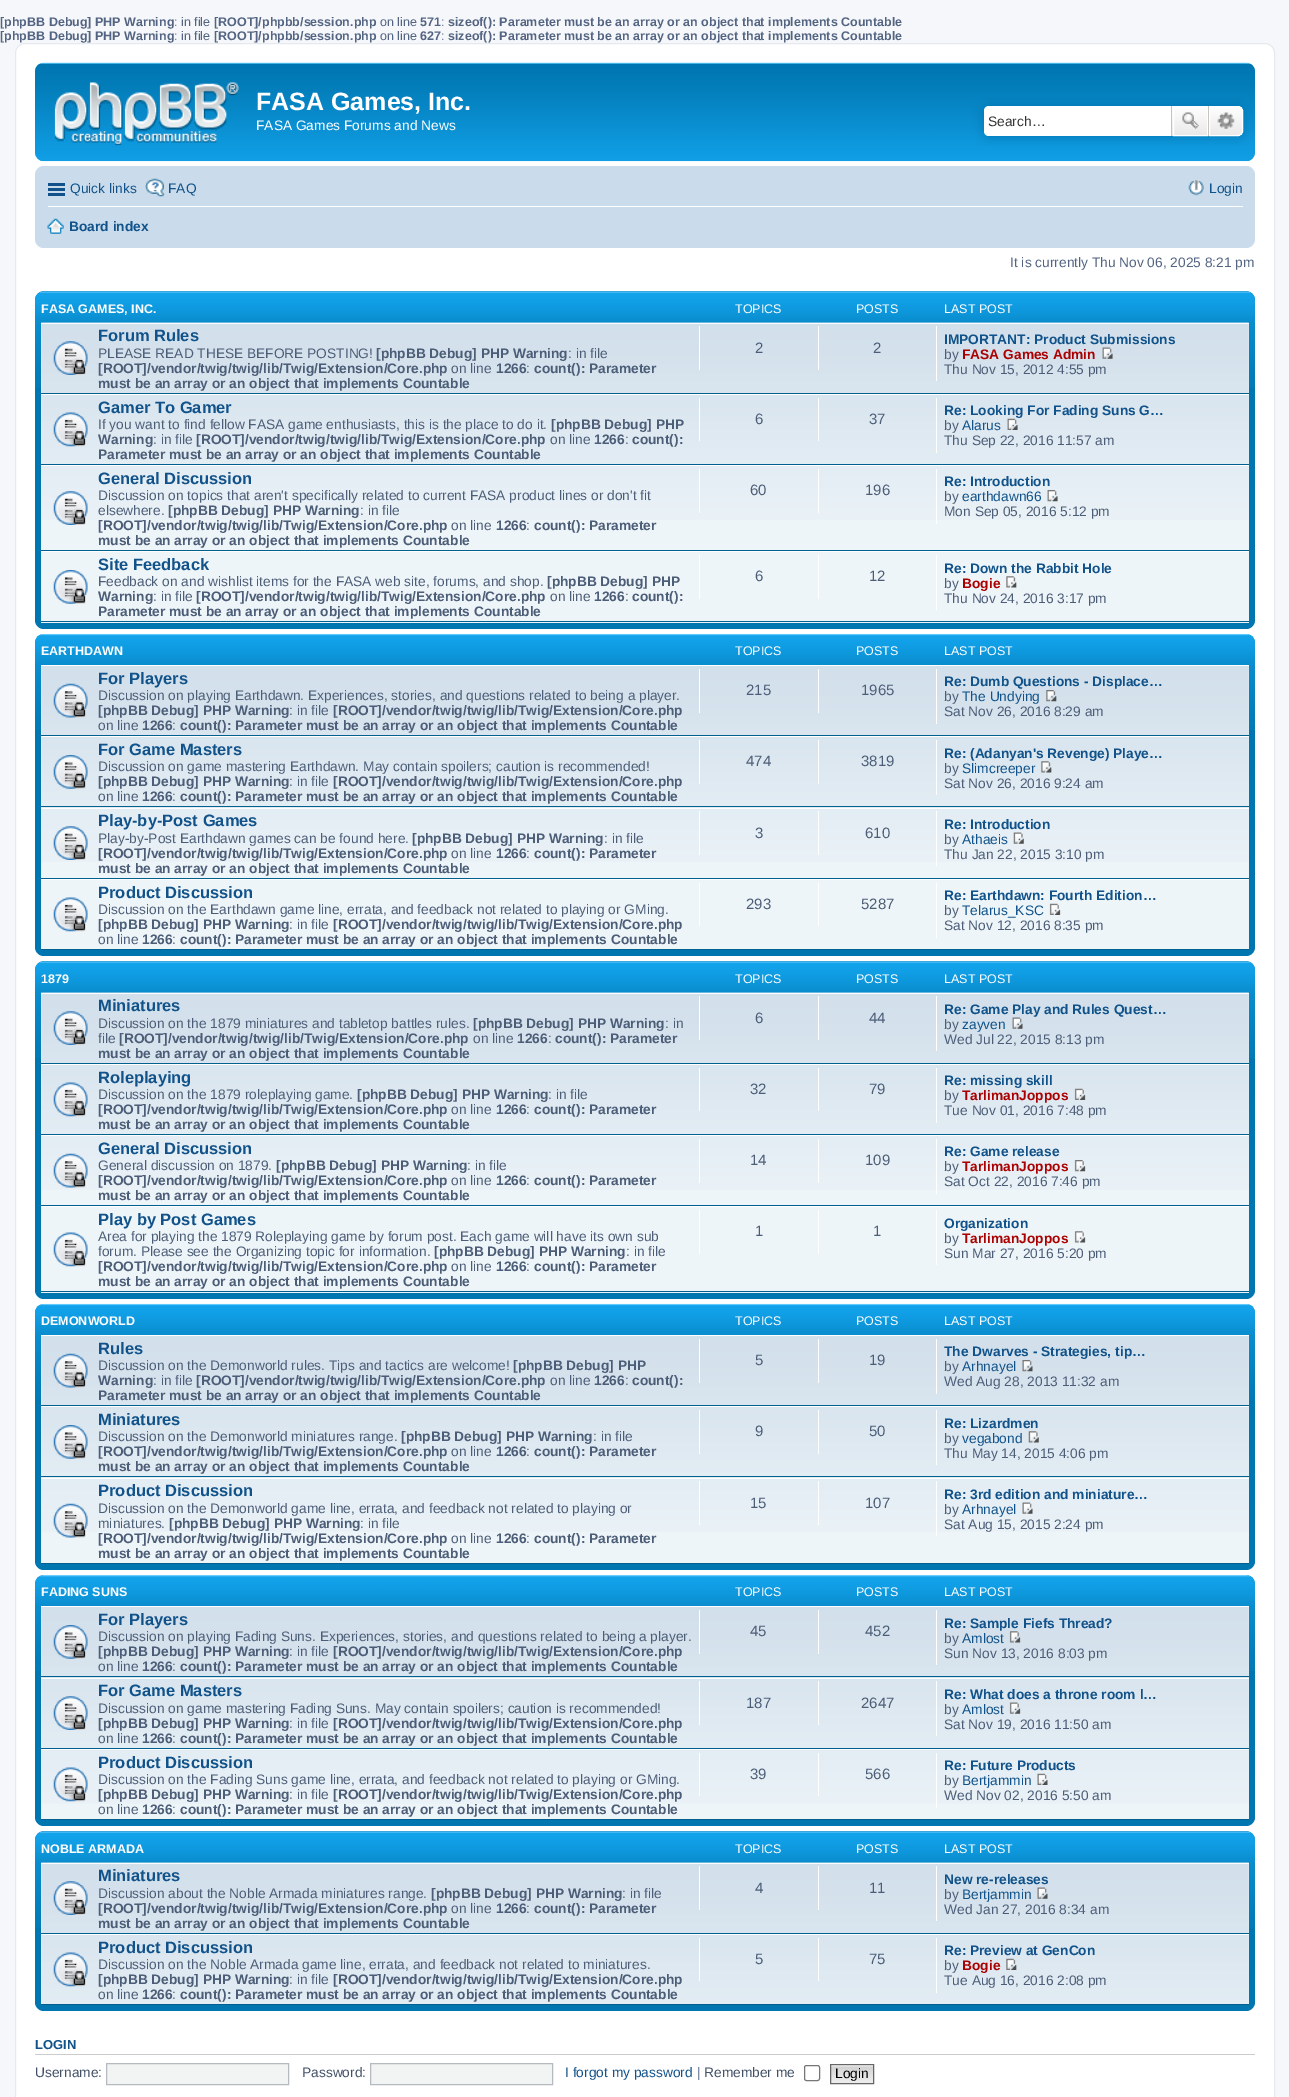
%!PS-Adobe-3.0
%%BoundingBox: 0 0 1289 2097
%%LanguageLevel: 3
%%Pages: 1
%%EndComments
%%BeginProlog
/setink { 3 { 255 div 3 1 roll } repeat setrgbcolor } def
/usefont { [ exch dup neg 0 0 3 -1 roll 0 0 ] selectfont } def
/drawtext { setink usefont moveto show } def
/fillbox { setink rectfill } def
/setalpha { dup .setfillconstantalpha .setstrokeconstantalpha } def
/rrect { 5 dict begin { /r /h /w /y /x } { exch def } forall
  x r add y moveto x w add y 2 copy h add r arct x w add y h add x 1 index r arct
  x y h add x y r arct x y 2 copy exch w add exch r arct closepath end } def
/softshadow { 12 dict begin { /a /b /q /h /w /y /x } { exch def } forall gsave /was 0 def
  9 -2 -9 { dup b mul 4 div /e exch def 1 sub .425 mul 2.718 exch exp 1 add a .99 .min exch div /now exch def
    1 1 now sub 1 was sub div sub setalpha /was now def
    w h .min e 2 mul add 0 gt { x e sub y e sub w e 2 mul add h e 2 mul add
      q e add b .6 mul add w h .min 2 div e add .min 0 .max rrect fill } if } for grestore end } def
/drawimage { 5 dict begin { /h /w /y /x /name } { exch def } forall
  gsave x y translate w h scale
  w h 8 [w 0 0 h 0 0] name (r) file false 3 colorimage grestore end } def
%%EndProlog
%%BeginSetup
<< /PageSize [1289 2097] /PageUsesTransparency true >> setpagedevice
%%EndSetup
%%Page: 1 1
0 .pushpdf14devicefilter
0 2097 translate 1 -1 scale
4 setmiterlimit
0 0 1289 2097 245 247 250 fillbox
([phpBB Debug] PHP Warning) 0 26 /LiberationSans-Bold 12.5 83 100 130 drawtext
(: in file) 174 26 /LiberationSans-Regular 12.5 83 100 130 drawtext
([ROOT]/phpbb/session.php) 214 26 /LiberationSans-Bold 12.5 83 100 130 drawtext
(on line) 380 26 /LiberationSans-Regular 12.5 83 100 130 drawtext
(571) 420 26 /LiberationSans-Bold 12.5 83 100 130 drawtext
(:) 441 26 /LiberationSans-Regular 12.5 83 100 130 drawtext
(sizeof\(\): Parameter must be an array or an object that implements Countable) 448 26 /LiberationSans-Bold 12.5 83 100 130 drawtext
([phpBB Debug] PHP Warning) 0 40 /LiberationSans-Bold 12.5 83 100 130 drawtext
(: in file) 174 40 /LiberationSans-Regular 12.5 83 100 130 drawtext
([ROOT]/phpbb/session.php) 214 40 /LiberationSans-Bold 12.5 83 100 130 drawtext
(on line) 380 40 /LiberationSans-Regular 12.5 83 100 130 drawtext
(627) 420 40 /LiberationSans-Bold 12.5 83 100 130 drawtext
(:) 441 40 /LiberationSans-Regular 12.5 83 100 130 drawtext
(sizeof\(\): Parameter must be an array or an object that implements Countable) 448 40 /LiberationSans-Bold 12.5 83 100 130 drawtext
255 255 255 setink
15.5 43.5 1259 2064 9.5 rrect gsave fill grestore
230 233 237 setink
stroke
(assets/img1.rgb) 35 62 1220 100 drawimage
(assets/img2.rgb) 54 82 185 64 drawimage
(FASA Games, Inc.) 256 110 /LiberationSans-Bold 25 255 255 255 drawtext
(FASA Games Forums and News) 256 130 /LiberationSans-Regular 13.75 255 255 255 drawtext
0 117 176 setink
984 106 259 30 5 6 1 softshadow
255 255 255 setink
989 106 moveto 1171 106 lineto 1171 136 lineto 989 136 lineto 986 136 984 134 984 131 curveto 984 111 lineto 984 108 986 106 989 106 curveto closepath fill
(Search…) 988 126 /LiberationSans-Regular 13.75 51 51 51 drawtext
gsave 1172 106 moveto 1207 106 lineto 1207 136 lineto 1172 136 lineto closepath clip newpath
<< /ShadingType 2 /ColorSpace /DeviceRGB /Coords [1190 106 1190 136] /Extend [true true] /Function << /FunctionType 2 /Domain [0 1] /C0 [1 1 1] /C1 [0.914 0.914 0.914] /N 1 >> >> shfill grestore
255 255 255 setink
1173.5 106.5 34 29 rectstroke
1208 106 1 30 199 195 191 fillbox
1171 106 1 30 199 195 191 fillbox
(assets/img3.rgb) 1182 112 17 17 drawimage
gsave 1209.5 106.5 moveto 1238 106.5 lineto 1240.5 106.5 1242.5 108.5 1242.5 111 curveto 1242.5 131 lineto 1242.5 133.5 1240.5 135.5 1238 135.5 curveto 1209.5 135.5 lineto closepath clip newpath
<< /ShadingType 2 /ColorSpace /DeviceRGB /Coords [1226 106 1226 136] /Extend [true true] /Function << /FunctionType 2 /Domain [0 1] /C0 [1 1 1] /C1 [0.914 0.914 0.914] /N 1 >> >> shfill grestore
255 255 255 setink
1209.5 106.5 moveto 1238 106.5 lineto 1240.5 106.5 1242.5 108.5 1242.5 111 curveto 1242.5 131 lineto 1242.5 133.5 1240.5 135.5 1238 135.5 curveto 1209.5 135.5 lineto closepath stroke
(assets/img4.rgb) 1217 112 18 17 drawimage
202 220 235 setink
35 166 1220 82 9 rrect fill
48 183 17 3 16 82 137 fillbox
48 188 17 3 16 82 137 fillbox
48 193 17 3 16 82 137 fillbox
(Quick links) 70 193 /LiberationSans-Regular 13.75 16 82 137 drawtext
(assets/img5.rgb) 145 178 20 19 drawimage
(FAQ) 168 193 /LiberationSans-Regular 13.75 16 82 137 drawtext
(assets/img6.rgb) 1188 180 16 16 drawimage
(Login) 1209 193 /LiberationSans-Regular 13.75 16 82 137 drawtext
48 206 1195 1 255 255 255 fillbox
(assets/img7.rgb) 47 218 17 16 drawimage
(Board index) 69 231 /LiberationSans-Bold 13.75 16 82 137 drawtext
(It is currently Thu Nov 06, 2025 8:21 pm) 1010 267 /LiberationSans-Regular 13.75 83 100 130 drawtext
0 118 177 setink
35 291 1220 338 9 rrect fill
(assets/img8.rgb) 35 291 1220 97 drawimage
(FASA GAMES, INC.) 41 313 /LiberationSans-Bold 12.5 255 255 255 drawtext
(TOPICS) 735 313 /LiberationSans-Regular 12.5 255 255 255 drawtext
(POSTS) 856 313 /LiberationSans-Regular 12.5 255 255 255 drawtext
(LAST POST) 944 313 /LiberationSans-Regular 12.5 255 255 255 drawtext
41 324 1208 299 238 245 249 fillbox
(assets/img9.rgb) 41 322 1208 198 drawimage
41 323 1208 1 255 255 255 fillbox
41 393 1208 1 0 96 143 fillbox
(assets/img10.rgb) 53 341 35 34 drawimage
(Forum Rules) 98 341 /LiberationSans-Bold 16.5 16 82 137 drawtext
(PLEASE READ THESE BEFORE POSTING!) 98 358 /LiberationSans-Regular 13.75 76 93 119 drawtext
([phpBB Debug] PHP Warning) 376 358 /LiberationSans-Bold 13.75 76 93 119 drawtext
(: in file) 568 358 /LiberationSans-Regular 13.75 76 93 119 drawtext
([ROOT]/vendor/twig/twig/lib/Twig/Extension/Core.php) 98 373 /LiberationSans-Bold 13.75 76 93 119 drawtext
(on line) 451 373 /LiberationSans-Regular 13.75 76 93 119 drawtext
(1266) 496 373 /LiberationSans-Bold 13.75 76 93 119 drawtext
(:) 526 373 /LiberationSans-Regular 13.75 76 93 119 drawtext
(count\(\): Parameter) 534 373 /LiberationSans-Bold 13.75 76 93 119 drawtext
(must be an array or an object that implements Countable) 98 388 /LiberationSans-Bold 13.75 76 93 119 drawtext
699 326 1 44 255 255 255 fillbox
(2) 755 353 /LiberationSans-Regular 15 76 93 119 drawtext
818 326 1 44 255 255 255 fillbox
(2) 873 353 /LiberationSans-Regular 15 76 93 119 drawtext
936 326 1 55 255 255 255 fillbox
(IMPORTANT: Product Submissions) 944 344 /LiberationSans-Bold 13.75 16 82 137 drawtext
(by) 944 359 /LiberationSans-Regular 13.75 76 93 119 drawtext
(FASA Games Admin) 962 359 /LiberationSans-Bold 13.75 170 0 0 drawtext
(assets/img11.rgb) 1102 347 11 12 drawimage
(Thu Nov 15, 2012 4:55 pm) 944 374 /LiberationSans-Regular 13.75 76 93 119 drawtext
41 394 1208 1 255 255 255 fillbox
41 464 1208 1 0 96 143 fillbox
(assets/img12.rgb) 53 412 35 35 drawimage
(Gamer To Gamer) 98 413 /LiberationSans-Bold 16.5 16 82 137 drawtext
(If you want to find fellow FASA game enthusiasts, this is the place to do it.) 98 429 /LiberationSans-Regular 13.75 76 93 119 drawtext
([phpBB Debug] PHP) 551 429 /LiberationSans-Bold 13.75 76 93 119 drawtext
(Warning) 98 444 /LiberationSans-Bold 13.75 76 93 119 drawtext
(: in file) 153 444 /LiberationSans-Regular 13.75 76 93 119 drawtext
([ROOT]/vendor/twig/twig/lib/Twig/Extension/Core.php) 196 444 /LiberationSans-Bold 13.75 76 93 119 drawtext
(on line) 550 444 /LiberationSans-Regular 13.75 76 93 119 drawtext
(1266) 594 444 /LiberationSans-Bold 13.75 76 93 119 drawtext
(:) 625 444 /LiberationSans-Regular 13.75 76 93 119 drawtext
(count\(\):) 632 444 /LiberationSans-Bold 13.75 76 93 119 drawtext
(Parameter must be an array or an object that implements Countable) 98 459 /LiberationSans-Bold 13.75 76 93 119 drawtext
699 398 1 43 255 255 255 fillbox
(6) 755 424 /LiberationSans-Regular 15 76 93 119 drawtext
818 398 1 43 255 255 255 fillbox
(37) 869 424 /LiberationSans-Regular 15 76 93 119 drawtext
936 398 1 55 255 255 255 fillbox
(Re: Looking For Fading Suns G…) 944 415 /LiberationSans-Bold 13.75 16 82 137 drawtext
(by) 944 430 /LiberationSans-Regular 13.75 76 93 119 drawtext
(Alarus) 962 430 /LiberationSans-Regular 13.75 16 82 137 drawtext
(assets/img13.rgb) 1007 418 11 12 drawimage
(Thu Sep 22, 2016 11:57 am) 944 445 /LiberationSans-Regular 13.75 76 93 119 drawtext
41 465 1208 1 255 255 255 fillbox
41 550 1208 1 0 96 143 fillbox
(assets/img14.rgb) 53 491 35 34 drawimage
(General Discussion) 98 484 /LiberationSans-Bold 16.5 16 82 137 drawtext
(Discussion on topics that aren't specifically related to current FASA product lines or don't fit) 98 500 /LiberationSans-Regular 13.75 76 93 119 drawtext
(elsewhere.) 98 515 /LiberationSans-Regular 13.75 76 93 119 drawtext
([phpBB Debug] PHP Warning) 168 515 /LiberationSans-Bold 13.75 76 93 119 drawtext
(: in file) 360 515 /LiberationSans-Regular 13.75 76 93 119 drawtext
([ROOT]/vendor/twig/twig/lib/Twig/Extension/Core.php) 98 530 /LiberationSans-Bold 13.75 76 93 119 drawtext
(on line) 451 530 /LiberationSans-Regular 13.75 76 93 119 drawtext
(1266) 496 530 /LiberationSans-Bold 13.75 76 93 119 drawtext
(:) 526 530 /LiberationSans-Regular 13.75 76 93 119 drawtext
(count\(\): Parameter) 534 530 /LiberationSans-Bold 13.75 76 93 119 drawtext
(must be an array or an object that implements Countable) 98 545 /LiberationSans-Bold 13.75 76 93 119 drawtext
699 469 1 44 255 255 255 fillbox
(60) 750 495 /LiberationSans-Regular 15 76 93 119 drawtext
818 469 1 44 255 255 255 fillbox
(196) 865 495 /LiberationSans-Regular 15 76 93 119 drawtext
936 469 1 55 255 255 255 fillbox
(Re: Introduction) 944 486 /LiberationSans-Bold 13.75 16 82 137 drawtext
(by) 944 501 /LiberationSans-Regular 13.75 76 93 119 drawtext
(earthdawn66) 962 501 /LiberationSans-Regular 13.75 16 82 137 drawtext
(assets/img15.rgb) 1047 490 11 12 drawimage
(Mon Sep 05, 2016 5:12 pm) 944 516 /LiberationSans-Regular 13.75 76 93 119 drawtext
41 551 1208 1 255 255 255 fillbox
41 621 1208 1 0 96 143 fillbox
(assets/img16.rgb) 53 570 35 34 drawimage
(Site Feedback) 98 570 /LiberationSans-Bold 16.5 16 82 137 drawtext
(Feedback on and wishlist items for the FASA web site, forums, and shop.) 98 586 /LiberationSans-Regular 13.75 76 93 119 drawtext
([phpBB Debug] PHP) 547 586 /LiberationSans-Bold 13.75 76 93 119 drawtext
(Warning) 98 601 /LiberationSans-Bold 13.75 76 93 119 drawtext
(: in file) 153 601 /LiberationSans-Regular 13.75 76 93 119 drawtext
([ROOT]/vendor/twig/twig/lib/Twig/Extension/Core.php) 196 601 /LiberationSans-Bold 13.75 76 93 119 drawtext
(on line) 550 601 /LiberationSans-Regular 13.75 76 93 119 drawtext
(1266) 594 601 /LiberationSans-Bold 13.75 76 93 119 drawtext
(:) 625 601 /LiberationSans-Regular 13.75 76 93 119 drawtext
(count\(\):) 632 601 /LiberationSans-Bold 13.75 76 93 119 drawtext
(Parameter must be an array or an object that implements Countable) 98 616 /LiberationSans-Bold 13.75 76 93 119 drawtext
699 555 1 44 255 255 255 fillbox
(6) 755 581 /LiberationSans-Regular 15 76 93 119 drawtext
818 555 1 44 255 255 255 fillbox
(12) 869 581 /LiberationSans-Regular 15 76 93 119 drawtext
936 555 1 55 255 255 255 fillbox
(Re: Down the Rabbit Hole) 944 573 /LiberationSans-Bold 13.75 16 82 137 drawtext
(by) 944 588 /LiberationSans-Regular 13.75 76 93 119 drawtext
(Bogie) 962 588 /LiberationSans-Bold 13.75 170 0 0 drawtext
(assets/img17.rgb) 1006 576 11 12 drawimage
(Thu Nov 24, 2016 3:17 pm) 944 603 /LiberationSans-Regular 13.75 76 93 119 drawtext
0 118 177 setink
35 634 1220 322 9 rrect fill
(assets/img18.rgb) 35 633 1220 97 drawimage
(EARTHDAWN) 41 655 /LiberationSans-Bold 12.5 255 255 255 drawtext
(TOPICS) 735 655 /LiberationSans-Regular 12.5 255 255 255 drawtext
(POSTS) 856 655 /LiberationSans-Regular 12.5 255 255 255 drawtext
(LAST POST) 944 655 /LiberationSans-Regular 12.5 255 255 255 drawtext
41 666 1208 283 238 245 249 fillbox
(assets/img19.rgb) 41 666 1208 196 drawimage
41 665 1208 1 255 255 255 fillbox
41 735 1208 1 0 96 143 fillbox
(assets/img20.rgb) 53 683 35 35 drawimage
(For Players) 98 684 /LiberationSans-Bold 16.5 16 82 137 drawtext
(Discussion on playing Earthdawn. Experiences, stories, and questions related to being a player.) 98 700 /LiberationSans-Regular 13.75 76 93 119 drawtext
([phpBB Debug] PHP Warning) 98 715 /LiberationSans-Bold 13.75 76 93 119 drawtext
(: in file) 289 715 /LiberationSans-Regular 13.75 76 93 119 drawtext
([ROOT]/vendor/twig/twig/lib/Twig/Extension/Core.php) 333 715 /LiberationSans-Bold 13.75 76 93 119 drawtext
(on line) 98 730 /LiberationSans-Regular 13.75 76 93 119 drawtext
(1266) 142 730 /LiberationSans-Bold 13.75 76 93 119 drawtext
(:) 172 730 /LiberationSans-Regular 13.75 76 93 119 drawtext
(count\(\): Parameter must be an array or an object that implements Countable) 180 730 /LiberationSans-Bold 13.75 76 93 119 drawtext
699 669 1 44 255 255 255 fillbox
(215) 746 695 /LiberationSans-Regular 15 76 93 119 drawtext
818 669 1 44 255 255 255 fillbox
(1965) 861 695 /LiberationSans-Regular 15 76 93 119 drawtext
936 669 1 55 255 255 255 fillbox
(Re: Dumb Questions - Displace…) 944 686 /LiberationSans-Bold 13.75 16 82 137 drawtext
(by) 944 701 /LiberationSans-Regular 13.75 76 93 119 drawtext
(The Undying) 962 701 /LiberationSans-Regular 13.75 16 82 137 drawtext
(assets/img21.rgb) 1046 690 11 12 drawimage
(Sat Nov 26, 2016 8:29 am) 944 716 /LiberationSans-Regular 13.75 76 93 119 drawtext
41 736 1208 1 255 255 255 fillbox
41 806 1208 1 0 96 143 fillbox
(assets/img22.rgb) 53 755 35 34 drawimage
(For Game Masters) 98 755 /LiberationSans-Bold 16.5 16 82 137 drawtext
(Discussion on game mastering Earthdawn. May contain spoilers; caution is recommended!) 98 771 /LiberationSans-Regular 13.75 76 93 119 drawtext
([phpBB Debug] PHP Warning) 98 786 /LiberationSans-Bold 13.75 76 93 119 drawtext
(: in file) 289 786 /LiberationSans-Regular 13.75 76 93 119 drawtext
([ROOT]/vendor/twig/twig/lib/Twig/Extension/Core.php) 333 786 /LiberationSans-Bold 13.75 76 93 119 drawtext
(on line) 98 801 /LiberationSans-Regular 13.75 76 93 119 drawtext
(1266) 142 801 /LiberationSans-Bold 13.75 76 93 119 drawtext
(:) 172 801 /LiberationSans-Regular 13.75 76 93 119 drawtext
(count\(\): Parameter must be an array or an object that implements Countable) 180 801 /LiberationSans-Bold 13.75 76 93 119 drawtext
699 740 1 44 255 255 255 fillbox
(474) 746 766 /LiberationSans-Regular 15 76 93 119 drawtext
818 740 1 44 255 255 255 fillbox
(3819) 861 766 /LiberationSans-Regular 15 76 93 119 drawtext
936 740 1 55 255 255 255 fillbox
(Re: \(Adanyan's Revenge\) Playe…) 944 758 /LiberationSans-Bold 13.75 16 82 137 drawtext
(by) 944 773 /LiberationSans-Regular 13.75 76 93 119 drawtext
(Slimcreeper) 962 773 /LiberationSans-Regular 13.75 16 82 137 drawtext
(assets/img23.rgb) 1041 761 11 12 drawimage
(Sat Nov 26, 2016 9:24 am) 944 788 /LiberationSans-Regular 13.75 76 93 119 drawtext
41 808 1208 1 255 255 255 fillbox
41 878 1208 1 0 96 143 fillbox
(assets/img24.rgb) 53 826 35 34 drawimage
(Play-by-Post Games) 98 826 /LiberationSans-Bold 16.5 16 82 137 drawtext
(Play-by-Post Earthdawn games can be found here.) 98 843 /LiberationSans-Regular 13.75 76 93 119 drawtext
([phpBB Debug] PHP Warning) 412 843 /LiberationSans-Bold 13.75 76 93 119 drawtext
(: in file) 604 843 /LiberationSans-Regular 13.75 76 93 119 drawtext
([ROOT]/vendor/twig/twig/lib/Twig/Extension/Core.php) 98 858 /LiberationSans-Bold 13.75 76 93 119 drawtext
(on line) 451 858 /LiberationSans-Regular 13.75 76 93 119 drawtext
(1266) 496 858 /LiberationSans-Bold 13.75 76 93 119 drawtext
(:) 526 858 /LiberationSans-Regular 13.75 76 93 119 drawtext
(count\(\): Parameter) 534 858 /LiberationSans-Bold 13.75 76 93 119 drawtext
(must be an array or an object that implements Countable) 98 873 /LiberationSans-Bold 13.75 76 93 119 drawtext
699 811 1 44 255 255 255 fillbox
(3) 755 838 /LiberationSans-Regular 15 76 93 119 drawtext
818 811 1 44 255 255 255 fillbox
(610) 865 838 /LiberationSans-Regular 15 76 93 119 drawtext
936 811 1 55 255 255 255 fillbox
(Re: Introduction) 944 829 /LiberationSans-Bold 13.75 16 82 137 drawtext
(by) 944 844 /LiberationSans-Regular 13.75 76 93 119 drawtext
(Athaeis) 962 844 /LiberationSans-Regular 13.75 16 82 137 drawtext
(assets/img25.rgb) 1013 832 11 12 drawimage
(Thu Jan 22, 2015 3:10 pm) 944 859 /LiberationSans-Regular 13.75 76 93 119 drawtext
41 879 1208 1 255 255 255 fillbox
41 949 1208 1 0 96 143 fillbox
(assets/img26.rgb) 53 897 35 35 drawimage
(Product Discussion) 98 898 /LiberationSans-Bold 16.5 16 82 137 drawtext
(Discussion on the Earthdawn game line, errata, and feedback not related to playing or GMing.) 98 914 /LiberationSans-Regular 13.75 76 93 119 drawtext
([phpBB Debug] PHP Warning) 98 929 /LiberationSans-Bold 13.75 76 93 119 drawtext
(: in file) 289 929 /LiberationSans-Regular 13.75 76 93 119 drawtext
([ROOT]/vendor/twig/twig/lib/Twig/Extension/Core.php) 333 929 /LiberationSans-Bold 13.75 76 93 119 drawtext
(on line) 98 944 /LiberationSans-Regular 13.75 76 93 119 drawtext
(1266) 142 944 /LiberationSans-Bold 13.75 76 93 119 drawtext
(:) 172 944 /LiberationSans-Regular 13.75 76 93 119 drawtext
(count\(\): Parameter must be an array or an object that implements Countable) 180 944 /LiberationSans-Bold 13.75 76 93 119 drawtext
699 883 1 43 255 255 255 fillbox
(293) 746 909 /LiberationSans-Regular 15 76 93 119 drawtext
818 883 1 43 255 255 255 fillbox
(5287) 861 909 /LiberationSans-Regular 15 76 93 119 drawtext
936 883 1 55 255 255 255 fillbox
(Re: Earthdawn: Fourth Edition…) 944 900 /LiberationSans-Bold 13.75 16 82 137 drawtext
(by) 944 915 /LiberationSans-Regular 13.75 76 93 119 drawtext
(Telarus_KSC) 962 915 /LiberationSans-Regular 13.75 16 82 137 drawtext
(assets/img27.rgb) 1049 903 12 12 drawimage
(Sat Nov 12, 2016 8:35 pm) 944 930 /LiberationSans-Regular 13.75 76 93 119 drawtext
0 118 177 setink
35 961 1220 338 9 rrect fill
(assets/img28.rgb) 35 961 1220 97 drawimage
(1879) 41 983 /LiberationSans-Bold 12.5 255 255 255 drawtext
(TOPICS) 735 983 /LiberationSans-Regular 12.5 255 255 255 drawtext
(POSTS) 856 983 /LiberationSans-Regular 12.5 255 255 255 drawtext
(LAST POST) 944 983 /LiberationSans-Regular 12.5 255 255 255 drawtext
41 994 1208 299 238 245 249 fillbox
(assets/img29.rgb) 41 992 1208 198 drawimage
41 993 1208 1 255 255 255 fillbox
41 1063 1208 1 0 96 143 fillbox
(assets/img10.rgb) 53 1011 35 34 drawimage
(Miniatures) 98 1011 /LiberationSans-Bold 16.5 16 82 137 drawtext
(Discussion on the 1879 miniatures and tabletop battles rules.) 98 1028 /LiberationSans-Regular 13.75 76 93 119 drawtext
([phpBB Debug] PHP Warning) 473 1028 /LiberationSans-Bold 13.75 76 93 119 drawtext
(: in) 665 1028 /LiberationSans-Regular 13.75 76 93 119 drawtext
(file) 98 1043 /LiberationSans-Regular 13.75 76 93 119 drawtext
([ROOT]/vendor/twig/twig/lib/Twig/Extension/Core.php) 119 1043 /LiberationSans-Bold 13.75 76 93 119 drawtext
(on line) 473 1043 /LiberationSans-Regular 13.75 76 93 119 drawtext
(1266) 517 1043 /LiberationSans-Bold 13.75 76 93 119 drawtext
(:) 548 1043 /LiberationSans-Regular 13.75 76 93 119 drawtext
(count\(\): Parameter) 555 1043 /LiberationSans-Bold 13.75 76 93 119 drawtext
(must be an array or an object that implements Countable) 98 1058 /LiberationSans-Bold 13.75 76 93 119 drawtext
699 996 1 44 255 255 255 fillbox
(6) 755 1023 /LiberationSans-Regular 15 76 93 119 drawtext
818 996 1 44 255 255 255 fillbox
(44) 869 1023 /LiberationSans-Regular 15 76 93 119 drawtext
936 996 1 55 255 255 255 fillbox
(Re: Game Play and Rules Quest…) 944 1014 /LiberationSans-Bold 13.75 16 82 137 drawtext
(by) 944 1029 /LiberationSans-Regular 13.75 76 93 119 drawtext
(zayven) 962 1029 /LiberationSans-Regular 13.75 16 82 137 drawtext
(assets/img30.rgb) 1012 1017 11 12 drawimage
(Wed Jul 22, 2015 8:13 pm) 944 1044 /LiberationSans-Regular 13.75 76 93 119 drawtext
41 1064 1208 1 255 255 255 fillbox
41 1134 1208 1 0 96 143 fillbox
(assets/img12.rgb) 53 1082 35 35 drawimage
(Roleplaying) 98 1083 /LiberationSans-Bold 16.5 16 82 137 drawtext
(Discussion on the 1879 roleplaying game.) 98 1099 /LiberationSans-Regular 13.75 76 93 119 drawtext
([phpBB Debug] PHP Warning) 357 1099 /LiberationSans-Bold 13.75 76 93 119 drawtext
(: in file) 548 1099 /LiberationSans-Regular 13.75 76 93 119 drawtext
([ROOT]/vendor/twig/twig/lib/Twig/Extension/Core.php) 98 1114 /LiberationSans-Bold 13.75 76 93 119 drawtext
(on line) 451 1114 /LiberationSans-Regular 13.75 76 93 119 drawtext
(1266) 496 1114 /LiberationSans-Bold 13.75 76 93 119 drawtext
(:) 526 1114 /LiberationSans-Regular 13.75 76 93 119 drawtext
(count\(\): Parameter) 534 1114 /LiberationSans-Bold 13.75 76 93 119 drawtext
(must be an array or an object that implements Countable) 98 1129 /LiberationSans-Bold 13.75 76 93 119 drawtext
699 1068 1 43 255 255 255 fillbox
(32) 750 1094 /LiberationSans-Regular 15 76 93 119 drawtext
818 1068 1 43 255 255 255 fillbox
(79) 869 1094 /LiberationSans-Regular 15 76 93 119 drawtext
936 1068 1 55 255 255 255 fillbox
(Re: missing skill) 944 1085 /LiberationSans-Bold 13.75 16 82 137 drawtext
(by) 944 1100 /LiberationSans-Regular 13.75 76 93 119 drawtext
(TarlimanJoppos) 962 1100 /LiberationSans-Bold 13.75 170 0 0 drawtext
(assets/img31.rgb) 1074 1088 12 12 drawimage
(Tue Nov 01, 2016 7:48 pm) 944 1115 /LiberationSans-Regular 13.75 76 93 119 drawtext
41 1135 1208 1 255 255 255 fillbox
41 1205 1208 1 0 96 143 fillbox
(assets/img32.rgb) 53 1153 35 35 drawimage
(General Discussion) 98 1154 /LiberationSans-Bold 16.5 16 82 137 drawtext
(General discussion on 1879.) 98 1170 /LiberationSans-Regular 13.75 76 93 119 drawtext
([phpBB Debug] PHP Warning) 276 1170 /LiberationSans-Bold 13.75 76 93 119 drawtext
(: in file) 467 1170 /LiberationSans-Regular 13.75 76 93 119 drawtext
([ROOT]/vendor/twig/twig/lib/Twig/Extension/Core.php) 98 1185 /LiberationSans-Bold 13.75 76 93 119 drawtext
(on line) 451 1185 /LiberationSans-Regular 13.75 76 93 119 drawtext
(1266) 496 1185 /LiberationSans-Bold 13.75 76 93 119 drawtext
(:) 526 1185 /LiberationSans-Regular 13.75 76 93 119 drawtext
(count\(\): Parameter) 534 1185 /LiberationSans-Bold 13.75 76 93 119 drawtext
(must be an array or an object that implements Countable) 98 1200 /LiberationSans-Bold 13.75 76 93 119 drawtext
699 1139 1 44 255 255 255 fillbox
(14) 750 1165 /LiberationSans-Regular 15 76 93 119 drawtext
818 1139 1 44 255 255 255 fillbox
(109) 865 1165 /LiberationSans-Regular 15 76 93 119 drawtext
936 1139 1 55 255 255 255 fillbox
(Re: Game release) 944 1156 /LiberationSans-Bold 13.75 16 82 137 drawtext
(by) 944 1171 /LiberationSans-Regular 13.75 76 93 119 drawtext
(TarlimanJoppos) 962 1171 /LiberationSans-Bold 13.75 170 0 0 drawtext
(assets/img33.rgb) 1074 1160 12 12 drawimage
(Sat Oct 22, 2016 7:46 pm) 944 1186 /LiberationSans-Regular 13.75 76 93 119 drawtext
41 1206 1208 1 255 255 255 fillbox
41 1291 1208 1 0 96 143 fillbox
(assets/img26.rgb) 53 1232 35 35 drawimage
(Play by Post Games) 98 1225 /LiberationSans-Bold 16.5 16 82 137 drawtext
(Area for playing the 1879 Roleplaying game by forum post. Each game will have its own sub) 98 1241 /LiberationSans-Regular 13.75 76 93 119 drawtext
(forum. Please see the Organizing topic for information.) 98 1256 /LiberationSans-Regular 13.75 76 93 119 drawtext
([phpBB Debug] PHP Warning) 434 1256 /LiberationSans-Bold 13.75 76 93 119 drawtext
(: in file) 626 1256 /LiberationSans-Regular 13.75 76 93 119 drawtext
([ROOT]/vendor/twig/twig/lib/Twig/Extension/Core.php) 98 1271 /LiberationSans-Bold 13.75 76 93 119 drawtext
(on line) 451 1271 /LiberationSans-Regular 13.75 76 93 119 drawtext
(1266) 496 1271 /LiberationSans-Bold 13.75 76 93 119 drawtext
(:) 526 1271 /LiberationSans-Regular 13.75 76 93 119 drawtext
(count\(\): Parameter) 534 1271 /LiberationSans-Bold 13.75 76 93 119 drawtext
(must be an array or an object that implements Countable) 98 1286 /LiberationSans-Bold 13.75 76 93 119 drawtext
699 1210 1 44 255 255 255 fillbox
(1) 755 1236 /LiberationSans-Regular 15 76 93 119 drawtext
818 1210 1 44 255 255 255 fillbox
(1) 873 1236 /LiberationSans-Regular 15 76 93 119 drawtext
936 1210 1 55 255 255 255 fillbox
(Organization) 944 1228 /LiberationSans-Bold 13.75 16 82 137 drawtext
(by) 944 1243 /LiberationSans-Regular 13.75 76 93 119 drawtext
(TarlimanJoppos) 962 1243 /LiberationSans-Bold 13.75 170 0 0 drawtext
(assets/img34.rgb) 1074 1231 12 12 drawimage
(Sun Mar 27, 2016 5:20 pm) 944 1258 /LiberationSans-Regular 13.75 76 93 119 drawtext
0 118 177 setink
35 1304 1220 266 9 rrect fill
(assets/img35.rgb) 35 1303 1220 97 drawimage
(DEMONWORLD) 41 1325 /LiberationSans-Bold 12.5 255 255 255 drawtext
(TOPICS) 735 1325 /LiberationSans-Regular 12.5 255 255 255 drawtext
(POSTS) 856 1325 /LiberationSans-Regular 12.5 255 255 255 drawtext
(LAST POST) 944 1325 /LiberationSans-Regular 12.5 255 255 255 drawtext
41 1336 1208 227 238 245 249 fillbox
(assets/img19.rgb) 41 1336 1208 196 drawimage
41 1335 1208 1 255 255 255 fillbox
41 1405 1208 1 0 96 143 fillbox
(assets/img20.rgb) 53 1353 35 35 drawimage
(Rules) 98 1354 /LiberationSans-Bold 16.5 16 82 137 drawtext
(Discussion on the Demonworld rules. Tips and tactics are welcome!) 98 1370 /LiberationSans-Regular 13.75 76 93 119 drawtext
([phpBB Debug] PHP) 513 1370 /LiberationSans-Bold 13.75 76 93 119 drawtext
(Warning) 98 1385 /LiberationSans-Bold 13.75 76 93 119 drawtext
(: in file) 153 1385 /LiberationSans-Regular 13.75 76 93 119 drawtext
([ROOT]/vendor/twig/twig/lib/Twig/Extension/Core.php) 196 1385 /LiberationSans-Bold 13.75 76 93 119 drawtext
(on line) 550 1385 /LiberationSans-Regular 13.75 76 93 119 drawtext
(1266) 594 1385 /LiberationSans-Bold 13.75 76 93 119 drawtext
(:) 625 1385 /LiberationSans-Regular 13.75 76 93 119 drawtext
(count\(\):) 632 1385 /LiberationSans-Bold 13.75 76 93 119 drawtext
(Parameter must be an array or an object that implements Countable) 98 1400 /LiberationSans-Bold 13.75 76 93 119 drawtext
699 1339 1 44 255 255 255 fillbox
(5) 755 1365 /LiberationSans-Regular 15 76 93 119 drawtext
818 1339 1 44 255 255 255 fillbox
(19) 869 1365 /LiberationSans-Regular 15 76 93 119 drawtext
936 1339 1 55 255 255 255 fillbox
(The Dwarves - Strategies, tip…) 944 1356 /LiberationSans-Bold 13.75 16 82 137 drawtext
(by) 944 1371 /LiberationSans-Regular 13.75 76 93 119 drawtext
(Arhnayel) 962 1371 /LiberationSans-Regular 13.75 16 82 137 drawtext
(assets/img36.rgb) 1022 1360 11 12 drawimage
(Wed Aug 28, 2013 11:32 am) 944 1386 /LiberationSans-Regular 13.75 76 93 119 drawtext
41 1406 1208 1 255 255 255 fillbox
41 1476 1208 1 0 96 143 fillbox
(assets/img22.rgb) 53 1425 35 34 drawimage
(Miniatures) 98 1425 /LiberationSans-Bold 16.5 16 82 137 drawtext
(Discussion on the Demonworld miniatures range.) 98 1441 /LiberationSans-Regular 13.75 76 93 119 drawtext
([phpBB Debug] PHP Warning) 401 1441 /LiberationSans-Bold 13.75 76 93 119 drawtext
(: in file) 593 1441 /LiberationSans-Regular 13.75 76 93 119 drawtext
([ROOT]/vendor/twig/twig/lib/Twig/Extension/Core.php) 98 1456 /LiberationSans-Bold 13.75 76 93 119 drawtext
(on line) 451 1456 /LiberationSans-Regular 13.75 76 93 119 drawtext
(1266) 496 1456 /LiberationSans-Bold 13.75 76 93 119 drawtext
(:) 526 1456 /LiberationSans-Regular 13.75 76 93 119 drawtext
(count\(\): Parameter) 534 1456 /LiberationSans-Bold 13.75 76 93 119 drawtext
(must be an array or an object that implements Countable) 98 1471 /LiberationSans-Bold 13.75 76 93 119 drawtext
699 1410 1 44 255 255 255 fillbox
(9) 755 1436 /LiberationSans-Regular 15 76 93 119 drawtext
818 1410 1 44 255 255 255 fillbox
(50) 869 1436 /LiberationSans-Regular 15 76 93 119 drawtext
936 1410 1 55 255 255 255 fillbox
(Re: Lizardmen) 944 1428 /LiberationSans-Bold 13.75 16 82 137 drawtext
(by) 944 1443 /LiberationSans-Regular 13.75 76 93 119 drawtext
(vegabond) 962 1443 /LiberationSans-Regular 13.75 16 82 137 drawtext
(assets/img37.rgb) 1028 1431 11 12 drawimage
(Thu May 14, 2015 4:06 pm) 944 1458 /LiberationSans-Regular 13.75 76 93 119 drawtext
41 1478 1208 1 255 255 255 fillbox
41 1563 1208 1 0 96 143 fillbox
(assets/img38.rgb) 53 1503 35 35 drawimage
(Product Discussion) 98 1496 /LiberationSans-Bold 16.5 16 82 137 drawtext
(Discussion on the Demonworld game line, errata, and feedback not related to playing or) 98 1513 /LiberationSans-Regular 13.75 76 93 119 drawtext
(miniatures.) 98 1528 /LiberationSans-Regular 13.75 76 93 119 drawtext
([phpBB Debug] PHP Warning) 169 1528 /LiberationSans-Bold 13.75 76 93 119 drawtext
(: in file) 360 1528 /LiberationSans-Regular 13.75 76 93 119 drawtext
([ROOT]/vendor/twig/twig/lib/Twig/Extension/Core.php) 98 1543 /LiberationSans-Bold 13.75 76 93 119 drawtext
(on line) 451 1543 /LiberationSans-Regular 13.75 76 93 119 drawtext
(1266) 496 1543 /LiberationSans-Bold 13.75 76 93 119 drawtext
(:) 526 1543 /LiberationSans-Regular 13.75 76 93 119 drawtext
(count\(\): Parameter) 534 1543 /LiberationSans-Bold 13.75 76 93 119 drawtext
(must be an array or an object that implements Countable) 98 1558 /LiberationSans-Bold 13.75 76 93 119 drawtext
699 1481 1 44 255 255 255 fillbox
(15) 750 1508 /LiberationSans-Regular 15 76 93 119 drawtext
818 1481 1 44 255 255 255 fillbox
(107) 865 1508 /LiberationSans-Regular 15 76 93 119 drawtext
936 1481 1 55 255 255 255 fillbox
(Re: 3rd edition and miniature…) 944 1499 /LiberationSans-Bold 13.75 16 82 137 drawtext
(by) 944 1514 /LiberationSans-Regular 13.75 76 93 119 drawtext
(Arhnayel) 962 1514 /LiberationSans-Regular 13.75 16 82 137 drawtext
(assets/img39.rgb) 1022 1502 11 12 drawimage
(Sat Aug 15, 2015 2:24 pm) 944 1529 /LiberationSans-Regular 13.75 76 93 119 drawtext
0 118 177 setink
35 1575 1220 251 9 rrect fill
(assets/img40.rgb) 35 1575 1220 96 drawimage
(FADING SUNS) 41 1596 /LiberationSans-Bold 12.5 255 255 255 drawtext
(TOPICS) 735 1596 /LiberationSans-Regular 12.5 255 255 255 drawtext
(POSTS) 856 1596 /LiberationSans-Regular 12.5 255 255 255 drawtext
(LAST POST) 944 1596 /LiberationSans-Regular 12.5 255 255 255 drawtext
41 1607 1208 212 238 245 249 fillbox
(assets/img41.rgb) 41 1607 1208 197 drawimage
41 1606 1208 1 255 255 255 fillbox
41 1676 1208 1 0 96 143 fillbox
(assets/img42.rgb) 53 1625 35 34 drawimage
(For Players) 98 1625 /LiberationSans-Bold 16.5 16 82 137 drawtext
(Discussion on playing Fading Suns. Experiences, stories, and questions related to being a player.) 98 1641 /LiberationSans-Regular 13.75 76 93 119 drawtext
([phpBB Debug] PHP Warning) 98 1656 /LiberationSans-Bold 13.75 76 93 119 drawtext
(: in file) 289 1656 /LiberationSans-Regular 13.75 76 93 119 drawtext
([ROOT]/vendor/twig/twig/lib/Twig/Extension/Core.php) 333 1656 /LiberationSans-Bold 13.75 76 93 119 drawtext
(on line) 98 1671 /LiberationSans-Regular 13.75 76 93 119 drawtext
(1266) 142 1671 /LiberationSans-Bold 13.75 76 93 119 drawtext
(:) 172 1671 /LiberationSans-Regular 13.75 76 93 119 drawtext
(count\(\): Parameter must be an array or an object that implements Countable) 180 1671 /LiberationSans-Bold 13.75 76 93 119 drawtext
699 1610 1 44 255 255 255 fillbox
(45) 750 1636 /LiberationSans-Regular 15 76 93 119 drawtext
818 1610 1 44 255 255 255 fillbox
(452) 865 1636 /LiberationSans-Regular 15 76 93 119 drawtext
936 1610 1 55 255 255 255 fillbox
(Re: Sample Fiefs Thread?) 944 1628 /LiberationSans-Bold 13.75 16 82 137 drawtext
(by) 944 1643 /LiberationSans-Regular 13.75 76 93 119 drawtext
(Amlost) 962 1643 /LiberationSans-Regular 13.75 16 82 137 drawtext
(assets/img43.rgb) 1009 1631 12 12 drawimage
(Sun Nov 13, 2016 8:03 pm) 944 1658 /LiberationSans-Regular 13.75 76 93 119 drawtext
41 1678 1208 1 255 255 255 fillbox
41 1748 1208 1 0 96 143 fillbox
(assets/img44.rgb) 53 1696 35 34 drawimage
(For Game Masters) 98 1696 /LiberationSans-Bold 16.5 16 82 137 drawtext
(Discussion on game mastering Fading Suns. May contain spoilers; caution is recommended!) 98 1713 /LiberationSans-Regular 13.75 76 93 119 drawtext
([phpBB Debug] PHP Warning) 98 1728 /LiberationSans-Bold 13.75 76 93 119 drawtext
(: in file) 289 1728 /LiberationSans-Regular 13.75 76 93 119 drawtext
([ROOT]/vendor/twig/twig/lib/Twig/Extension/Core.php) 333 1728 /LiberationSans-Bold 13.75 76 93 119 drawtext
(on line) 98 1743 /LiberationSans-Regular 13.75 76 93 119 drawtext
(1266) 142 1743 /LiberationSans-Bold 13.75 76 93 119 drawtext
(:) 172 1743 /LiberationSans-Regular 13.75 76 93 119 drawtext
(count\(\): Parameter must be an array or an object that implements Countable) 180 1743 /LiberationSans-Bold 13.75 76 93 119 drawtext
699 1681 1 44 255 255 255 fillbox
(187) 746 1708 /LiberationSans-Regular 15 76 93 119 drawtext
818 1681 1 44 255 255 255 fillbox
(2647) 861 1708 /LiberationSans-Regular 15 76 93 119 drawtext
936 1681 1 55 255 255 255 fillbox
(Re: What does a throne room l…) 944 1699 /LiberationSans-Bold 13.75 16 82 137 drawtext
(by) 944 1714 /LiberationSans-Regular 13.75 76 93 119 drawtext
(Amlost) 962 1714 /LiberationSans-Regular 13.75 16 82 137 drawtext
(assets/img45.rgb) 1009 1702 12 12 drawimage
(Sat Nov 19, 2016 11:50 am) 944 1729 /LiberationSans-Regular 13.75 76 93 119 drawtext
41 1749 1208 1 255 255 255 fillbox
41 1819 1208 1 0 96 143 fillbox
(assets/img46.rgb) 53 1767 35 35 drawimage
(Product Discussion) 98 1768 /LiberationSans-Bold 16.5 16 82 137 drawtext
(Discussion on the Fading Suns game line, errata, and feedback not related to playing or GMing.) 98 1784 /LiberationSans-Regular 13.75 76 93 119 drawtext
([phpBB Debug] PHP Warning) 98 1799 /LiberationSans-Bold 13.75 76 93 119 drawtext
(: in file) 289 1799 /LiberationSans-Regular 13.75 76 93 119 drawtext
([ROOT]/vendor/twig/twig/lib/Twig/Extension/Core.php) 333 1799 /LiberationSans-Bold 13.75 76 93 119 drawtext
(on line) 98 1814 /LiberationSans-Regular 13.75 76 93 119 drawtext
(1266) 142 1814 /LiberationSans-Bold 13.75 76 93 119 drawtext
(:) 172 1814 /LiberationSans-Regular 13.75 76 93 119 drawtext
(count\(\): Parameter must be an array or an object that implements Countable) 180 1814 /LiberationSans-Bold 13.75 76 93 119 drawtext
699 1753 1 43 255 255 255 fillbox
(39) 750 1779 /LiberationSans-Regular 15 76 93 119 drawtext
818 1753 1 43 255 255 255 fillbox
(566) 865 1779 /LiberationSans-Regular 15 76 93 119 drawtext
936 1753 1 55 255 255 255 fillbox
(Re: Future Products) 944 1770 /LiberationSans-Bold 13.75 16 82 137 drawtext
(by) 944 1785 /LiberationSans-Regular 13.75 76 93 119 drawtext
(Bertjammin) 962 1785 /LiberationSans-Regular 13.75 16 82 137 drawtext
(assets/img47.rgb) 1037 1773 11 12 drawimage
(Wed Nov 02, 2016 5:50 am) 944 1800 /LiberationSans-Regular 13.75 76 93 119 drawtext
0 118 177 setink
35 1831 1220 180 9 rrect fill
(assets/img48.rgb) 35 1831 1220 97 drawimage
(NOBLE ARMADA) 41 1853 /LiberationSans-Bold 12.5 255 255 255 drawtext
(TOPICS) 735 1853 /LiberationSans-Regular 12.5 255 255 255 drawtext
(POSTS) 856 1853 /LiberationSans-Regular 12.5 255 255 255 drawtext
(LAST POST) 944 1853 /LiberationSans-Regular 12.5 255 255 255 drawtext
(assets/img49.rgb) 41 1862 1208 142 drawimage
41 1863 1208 1 255 255 255 fillbox
41 1933 1208 1 0 96 143 fillbox
(assets/img10.rgb) 53 1881 35 34 drawimage
(Miniatures) 98 1881 /LiberationSans-Bold 16.5 16 82 137 drawtext
(Discussion about the Noble Armada miniatures range.) 98 1898 /LiberationSans-Regular 13.75 76 93 119 drawtext
([phpBB Debug] PHP Warning) 431 1898 /LiberationSans-Bold 13.75 76 93 119 drawtext
(: in file) 622 1898 /LiberationSans-Regular 13.75 76 93 119 drawtext
([ROOT]/vendor/twig/twig/lib/Twig/Extension/Core.php) 98 1913 /LiberationSans-Bold 13.75 76 93 119 drawtext
(on line) 451 1913 /LiberationSans-Regular 13.75 76 93 119 drawtext
(1266) 496 1913 /LiberationSans-Bold 13.75 76 93 119 drawtext
(:) 526 1913 /LiberationSans-Regular 13.75 76 93 119 drawtext
(count\(\): Parameter) 534 1913 /LiberationSans-Bold 13.75 76 93 119 drawtext
(must be an array or an object that implements Countable) 98 1928 /LiberationSans-Bold 13.75 76 93 119 drawtext
699 1866 1 44 255 255 255 fillbox
(4) 755 1893 /LiberationSans-Regular 15 76 93 119 drawtext
818 1866 1 44 255 255 255 fillbox
(11) 869 1893 /LiberationSans-Regular 15 76 93 119 drawtext
936 1866 1 55 255 255 255 fillbox
(New re-releases) 944 1884 /LiberationSans-Bold 13.75 16 82 137 drawtext
(by) 944 1899 /LiberationSans-Regular 13.75 76 93 119 drawtext
(Bertjammin) 962 1899 /LiberationSans-Regular 13.75 16 82 137 drawtext
(assets/img50.rgb) 1037 1887 11 12 drawimage
(Wed Jan 27, 2016 8:34 am) 944 1914 /LiberationSans-Regular 13.75 76 93 119 drawtext
41 1934 1208 1 255 255 255 fillbox
41 2004 1208 1 0 96 143 fillbox
(assets/img12.rgb) 53 1952 35 35 drawimage
(Product Discussion) 98 1953 /LiberationSans-Bold 16.5 16 82 137 drawtext
(Discussion on the Noble Armada game line, errata, and feedback not related to miniatures.) 98 1969 /LiberationSans-Regular 13.75 76 93 119 drawtext
([phpBB Debug] PHP Warning) 98 1984 /LiberationSans-Bold 13.75 76 93 119 drawtext
(: in file) 289 1984 /LiberationSans-Regular 13.75 76 93 119 drawtext
([ROOT]/vendor/twig/twig/lib/Twig/Extension/Core.php) 333 1984 /LiberationSans-Bold 13.75 76 93 119 drawtext
(on line) 98 1999 /LiberationSans-Regular 13.75 76 93 119 drawtext
(1266) 142 1999 /LiberationSans-Bold 13.75 76 93 119 drawtext
(:) 172 1999 /LiberationSans-Regular 13.75 76 93 119 drawtext
(count\(\): Parameter must be an array or an object that implements Countable) 180 1999 /LiberationSans-Bold 13.75 76 93 119 drawtext
699 1938 1 43 255 255 255 fillbox
(5) 755 1964 /LiberationSans-Regular 15 76 93 119 drawtext
818 1938 1 43 255 255 255 fillbox
(75) 869 1964 /LiberationSans-Regular 15 76 93 119 drawtext
936 1938 1 55 255 255 255 fillbox
(Re: Preview at GenCon) 944 1955 /LiberationSans-Bold 13.75 16 82 137 drawtext
(by) 944 1970 /LiberationSans-Regular 13.75 76 93 119 drawtext
(Bogie) 962 1970 /LiberationSans-Bold 13.75 170 0 0 drawtext
(assets/img51.rgb) 1006 1958 11 12 drawimage
(Tue Aug 16, 2016 2:08 pm) 944 1985 /LiberationSans-Regular 13.75 76 93 119 drawtext
35 2054 1220 1 204 204 204 fillbox
(LOGIN) 35 2049 /LiberationSans-Bold 13 16 82 137 drawtext
(Username:) 35 2077 /LiberationSans-Regular 13.75 66 80 103 drawtext
242 243 243 setink
106.5 2063.5 moveto 288.5 2063.5 lineto 288.5 2084.5 lineto 106.5 2084.5 lineto closepath gsave fill grestore
180 186 192 setink
stroke
(Password:) 302 2077 /LiberationSans-Regular 13.75 66 80 103 drawtext
242 243 243 setink
370.5 2063.5 moveto 552.5 2063.5 lineto 552.5 2084.5 lineto 370.5 2084.5 lineto closepath gsave fill grestore
180 186 192 setink
stroke
(I forgot my password) 565 2077 /LiberationSans-Regular 13.75 16 82 137 drawtext
(|) 697 2077 /LiberationSans-Regular 13.75 83 100 130 drawtext
(Remember me) 704 2077 /LiberationSans-Regular 13.75 66 80 103 drawtext
118 118 118 setink
804.5 2065.5 15 15 2 rrect stroke
(assets/img52.rgb) 831 2065 42 18 drawimage
102 102 102 setink
830.5 2064.5 43 19 rectstroke
(Login) 835 2078 /LiberationSans-Regular 13.75 0 0 0 drawtext
.poppdf14devicefilter showpage
%%EOF
